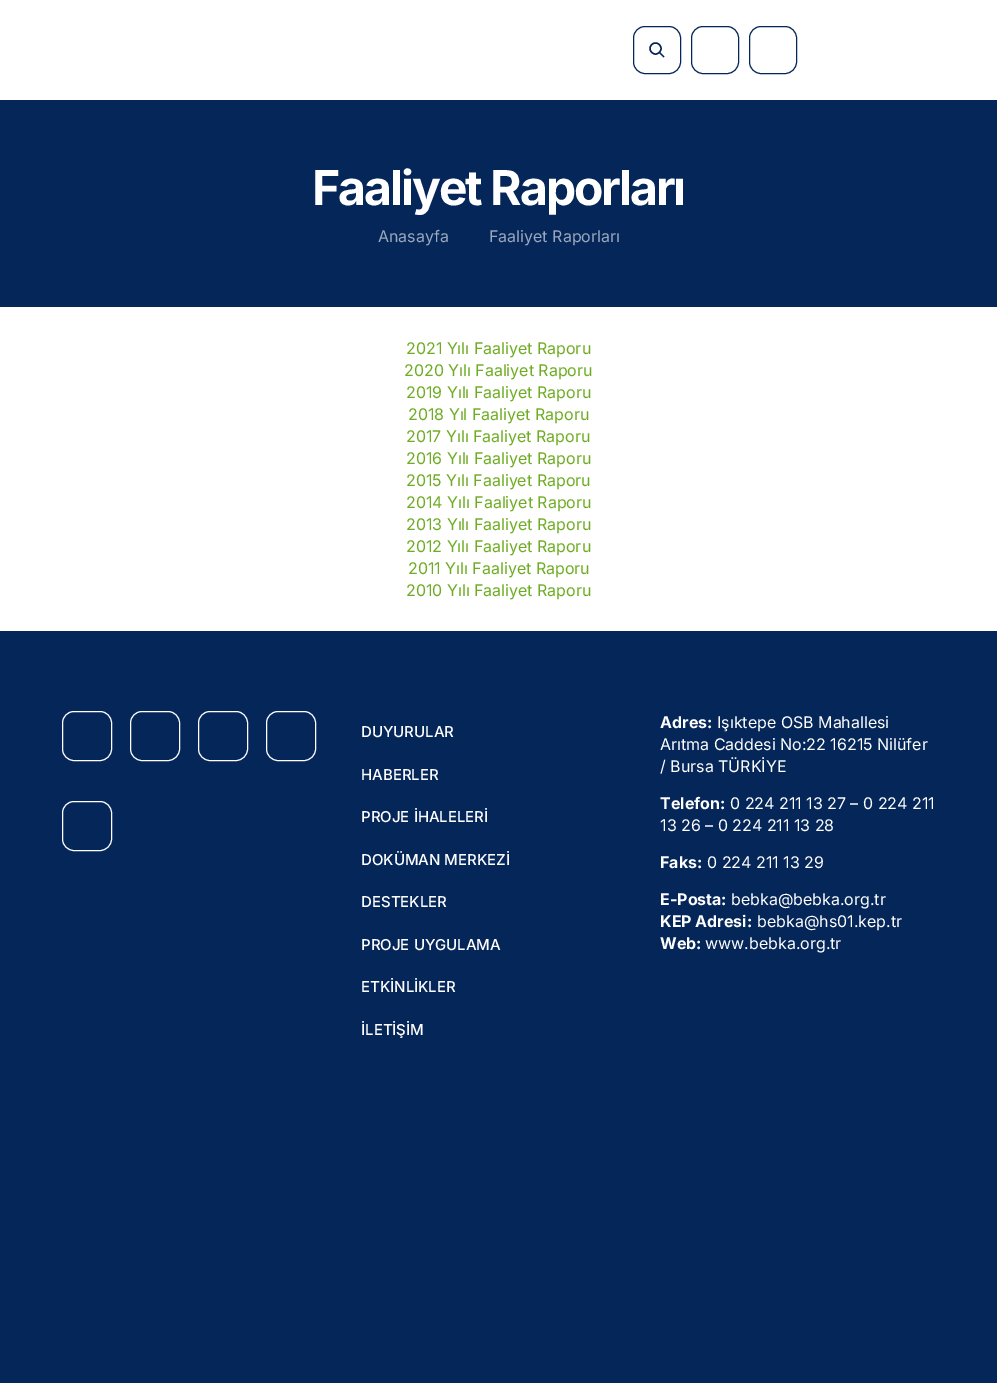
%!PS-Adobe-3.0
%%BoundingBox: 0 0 997 1383
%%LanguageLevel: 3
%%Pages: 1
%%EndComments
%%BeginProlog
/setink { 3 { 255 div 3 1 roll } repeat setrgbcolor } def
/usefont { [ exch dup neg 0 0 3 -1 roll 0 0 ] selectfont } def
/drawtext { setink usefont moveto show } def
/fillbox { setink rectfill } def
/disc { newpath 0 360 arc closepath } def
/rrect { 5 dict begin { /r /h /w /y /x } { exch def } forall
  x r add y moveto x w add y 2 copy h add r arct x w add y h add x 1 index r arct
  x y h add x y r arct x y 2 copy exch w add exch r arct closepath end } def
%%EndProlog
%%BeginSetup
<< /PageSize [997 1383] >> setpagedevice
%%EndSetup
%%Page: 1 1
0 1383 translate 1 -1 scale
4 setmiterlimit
0 0 997 1383 255 255 255 fillbox
5 38 89 setink
633.5 26.5 47 47 11.5 rrect stroke
1.4 setlinewidth
655.5 48.5 5.5 disc stroke
659.5 52.5 moveto 664 57 lineto stroke
1 setlinewidth
691.5 26.5 47 47 11.5 rrect stroke
749.5 26.5 47 47 11.5 rrect stroke
0 100 997 207 5 38 89 fillbox
/Inter-Bold 48 usefont
255 255 255 setink
312 205 moveto -2 0 (Faaliyet Raporları) ashow
(Anasayfa) 378 242 /Inter-Regular 16 155 168 189 drawtext
(Faaliyet Raporları) 489 242 /Inter-Regular 16 155 168 189 drawtext
(2021 Yılı Faaliyet Raporu) 406 354 /Inter-Regular 16 110 172 35 drawtext
(2020 Yılı Faaliyet Raporu) 404 376 /Inter-Regular 16 110 172 35 drawtext
(2019 Yılı Faaliyet Raporu) 406 398 /Inter-Regular 16 110 172 35 drawtext
(2018 Yıl Faaliyet Raporu) 408 420 /Inter-Regular 16 110 172 35 drawtext
(2017 Yılı Faaliyet Raporu) 406 442 /Inter-Regular 16 110 172 35 drawtext
(2016 Yılı Faaliyet Raporu) 406 464 /Inter-Regular 16 110 172 35 drawtext
(2015 Yılı Faaliyet Raporu) 406 486 /Inter-Regular 16 110 172 35 drawtext
(2014 Yılı Faaliyet Raporu) 406 508 /Inter-Regular 16 110 172 35 drawtext
(2013 Yılı Faaliyet Raporu) 406 530 /Inter-Regular 16 110 172 35 drawtext
(2012 Yılı Faaliyet Raporu) 406 552 /Inter-Regular 16 110 172 35 drawtext
(2011 Yılı Faaliyet Raporu) 408 574 /Inter-Regular 16 110 172 35 drawtext
(2010 Yılı Faaliyet Raporu) 406 596 /Inter-Regular 16 110 172 35 drawtext
0 631 997 752 5 38 89 fillbox
255 255 255 setink
62.5 711.5 49 49 11.5 rrect stroke
130.5 711.5 49 49 11.5 rrect stroke
198.5 711.5 49 49 11.5 rrect stroke
266.5 711.5 49 49 11.5 rrect stroke
62.5 801.5 49 49 11.5 rrect stroke
(DUYURULAR) 361 737 /Inter-Medium 15 255 255 255 drawtext
(HABERLER) 361 780 /Inter-Medium 15 255 255 255 drawtext
(PROJE İHALELERİ) 361 822 /Inter-Medium 15 255 255 255 drawtext
(DOKÜMAN MERKEZİ) 361 865 /Inter-Medium 15 255 255 255 drawtext
(DESTEKLER) 361 907 /Inter-Medium 15 255 255 255 drawtext
(PROJE UYGULAMA) 361 950 /Inter-Medium 15 255 255 255 drawtext
(ETKİNLİKLER) 361 992 /Inter-Medium 15 255 255 255 drawtext
(İLETİŞİM) 361 1035 /Inter-Medium 15 255 255 255 drawtext
(Adres:) 660 728 /Inter-Bold 16 255 255 255 drawtext
(Işıktepe OSB Mahallesi) 717 728 /Inter-Regular 16 255 255 255 drawtext
(Arıtma Caddesi No:22 16215 Nilüfer) 660 750 /Inter-Regular 16 255 255 255 drawtext
(/ Bursa TÜRKİYE) 660 772 /Inter-Regular 16 255 255 255 drawtext
(Telefon:) 660 809 /Inter-Bold 16 255 255 255 drawtext
(0 224 211 13 27 – 0 224 211) 730 809 /Inter-Regular 16 255 255 255 drawtext
(13 26 – 0 224 211 13 28) 660 831 /Inter-Regular 16 255 255 255 drawtext
(Faks:) 660 868 /Inter-Bold 16 255 255 255 drawtext
(0 224 211 13 29) 707 868 /Inter-Regular 16 255 255 255 drawtext
(E-Posta:) 660 905 /Inter-Bold 16 255 255 255 drawtext
(bebka@bebka.org.tr) 731 905 /Inter-Regular 16 255 255 255 drawtext
(KEP Adresi:) 660 927 /Inter-Bold 16 255 255 255 drawtext
(bebka@hs01.kep.tr) 757 927 /Inter-Regular 16 255 255 255 drawtext
(Web:) 660 949 /Inter-Bold 16 255 255 255 drawtext
(www.bebka.org.tr) 705 949 /Inter-Regular 16 255 255 255 drawtext
showpage
%%EOF
